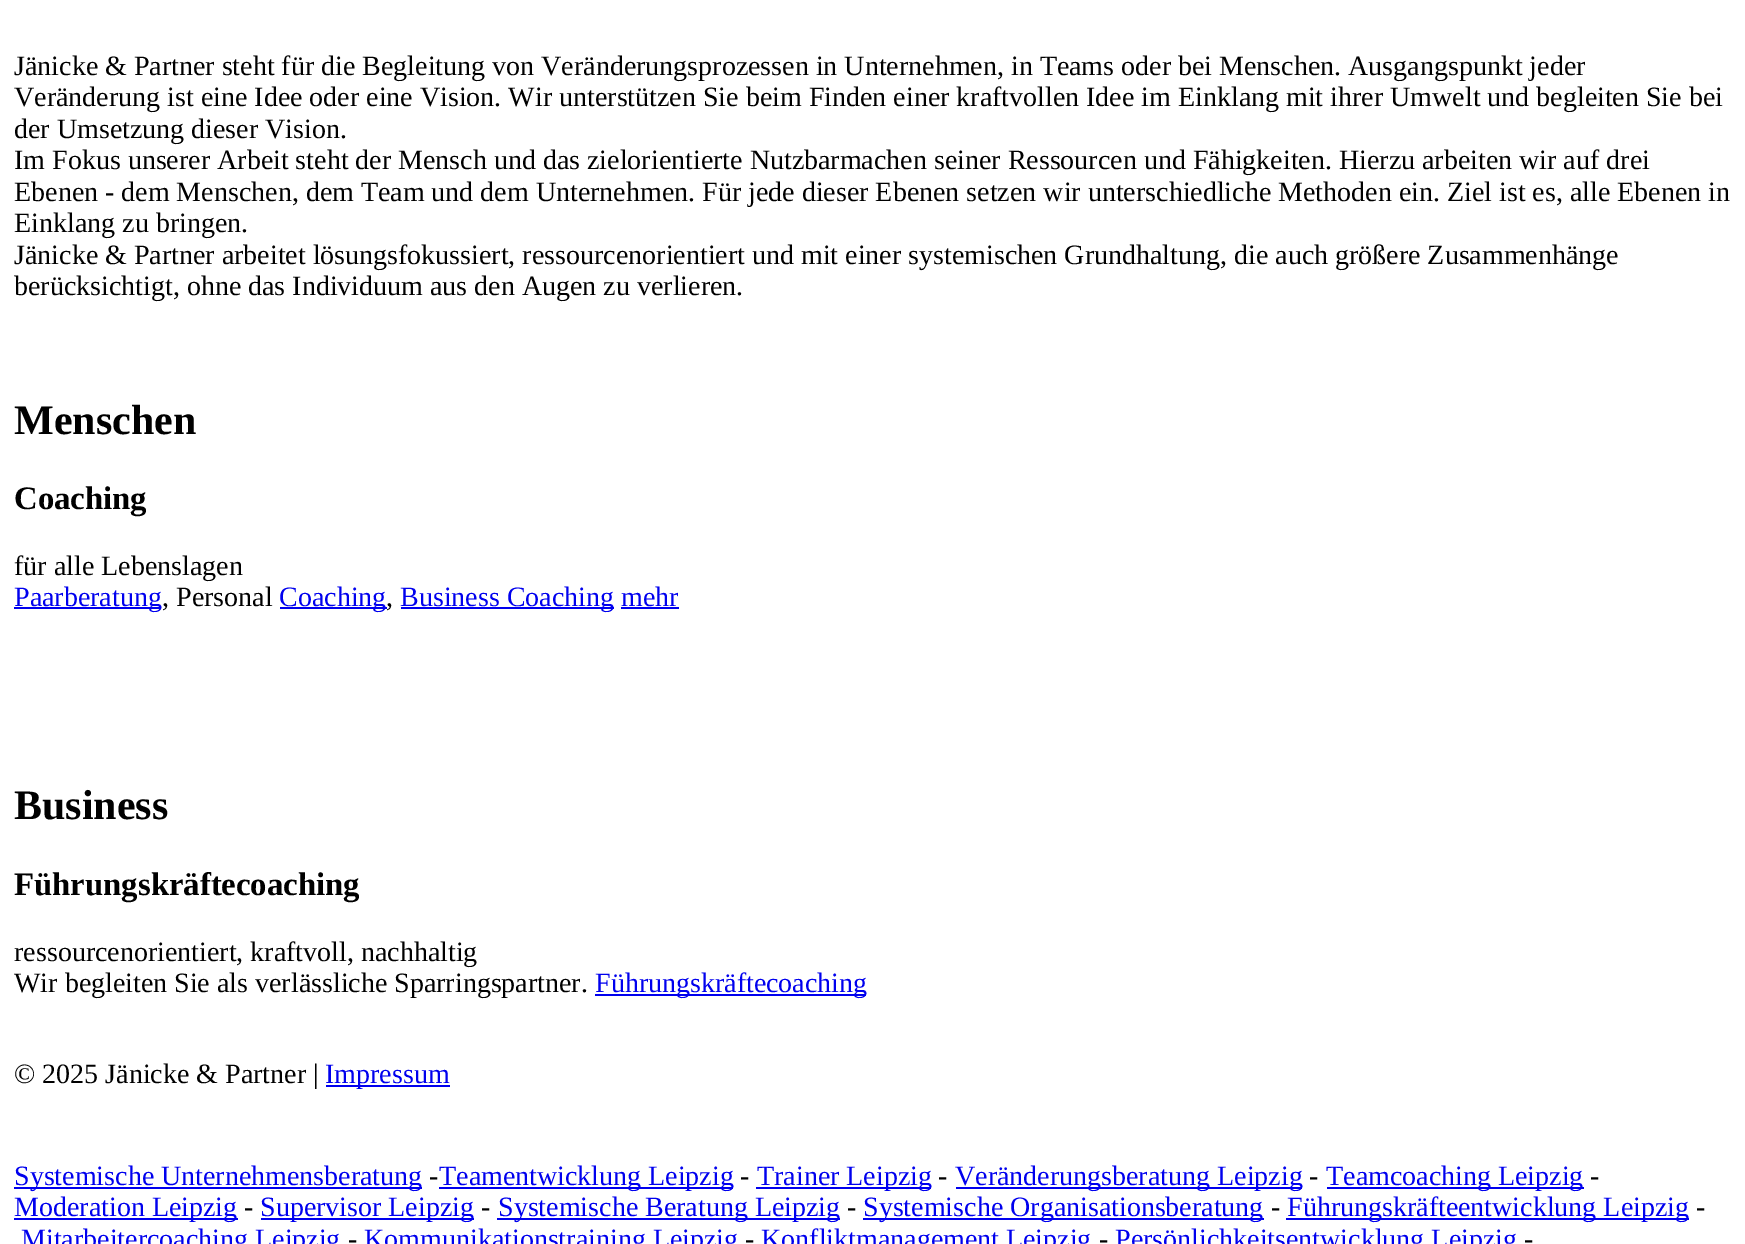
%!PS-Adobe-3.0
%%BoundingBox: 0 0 1745 1244
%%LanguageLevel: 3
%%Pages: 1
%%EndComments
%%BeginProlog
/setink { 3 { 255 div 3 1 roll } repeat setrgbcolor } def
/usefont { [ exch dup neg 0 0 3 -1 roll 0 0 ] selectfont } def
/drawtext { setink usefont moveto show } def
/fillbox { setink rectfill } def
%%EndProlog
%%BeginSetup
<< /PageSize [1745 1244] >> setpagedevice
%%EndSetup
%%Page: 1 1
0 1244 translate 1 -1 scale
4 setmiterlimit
0 0 1745 1244 255 255 255 fillbox
(Jänicke & Partner steht für die Begleitung von Veränderungsprozessen in Unternehmen, in Teams oder bei Menschen. Ausgangspunkt jeder) 14 75 /LiberationSerif-Regular 28 0 0 0 drawtext
(Veränderung ist eine Idee oder eine Vision. Wir unterstützen Sie beim Finden einer kraftvollen Idee im Einklang mit ihrer Umwelt und begleiten Sie bei) 14 106 /LiberationSerif-Regular 28 0 0 0 drawtext
(der Umsetzung dieser Vision.) 14 138 /LiberationSerif-Regular 28 0 0 0 drawtext
(Im Fokus unserer Arbeit steht der Mensch und das zielorientierte Nutzbarmachen seiner Ressourcen und Fähigkeiten. Hierzu arbeiten wir auf drei) 14 169 /LiberationSerif-Regular 28 0 0 0 drawtext
(Ebenen - dem Menschen, dem Team und dem Unternehmen. Für jede dieser Ebenen setzen wir unterschiedliche Methoden ein. Ziel ist es, alle Ebenen in) 14 201 /LiberationSerif-Regular 28 0 0 0 drawtext
(Einklang zu bringen.) 14 232 /LiberationSerif-Regular 28 0 0 0 drawtext
(Jänicke & Partner arbeitet lösungsfokussiert, ressourcenorientiert und mit einer systemischen Grundhaltung, die auch größere Zusammenhänge) 14 264 /LiberationSerif-Regular 28 0 0 0 drawtext
(berücksichtigt, ohne das Individuum aus den Augen zu verlieren.) 14 295 /LiberationSerif-Regular 28 0 0 0 drawtext
(Menschen) 14 434 /LiberationSerif-Bold 42 0 0 0 drawtext
(Coaching) 14 509 /LiberationSerif-Bold 32.75 0 0 0 drawtext
(für alle Lebenslagen) 14 575 /LiberationSerif-Regular 28 0 0 0 drawtext
14 607 147 2 0 0 238 fillbox
(Paarberatung) 14 606 /LiberationSerif-Regular 28 0 0 238 drawtext
(, Personal) 162 606 /LiberationSerif-Regular 28 0 0 0 drawtext
280 607 107 2 0 0 238 fillbox
(Coaching) 279 606 /LiberationSerif-Regular 28 0 0 238 drawtext
(,) 386 606 /LiberationSerif-Regular 28 0 0 0 drawtext
401 607 213 2 0 0 238 fillbox
(Business Coaching mehr) 400 606 /LiberationSerif-Regular 28 0 0 238 drawtext
621 607 58 2 0 0 238 fillbox
(Business) 14 819 /LiberationSerif-Bold 42 0 0 0 drawtext
(Führungskräftecoaching) 14 895 /LiberationSerif-Bold 32.75 0 0 0 drawtext
(ressourcenorientiert, kraftvoll, nachhaltig) 14 961 /LiberationSerif-Regular 28 0 0 0 drawtext
(Wir begleiten Sie als verlässliche Sparringspartner.) 14 992 /LiberationSerif-Regular 28 0 0 0 drawtext
595 994 271 2 0 0 238 fillbox
(Führungskräftecoaching) 595 992 /LiberationSerif-Regular 28 0 0 238 drawtext
(© 2025 Jänicke & Partner |) 14 1083 /LiberationSerif-Regular 28 0 0 0 drawtext
326 1085 124 2 0 0 238 fillbox
(Impressum) 325 1083 /LiberationSerif-Regular 28 0 0 238 drawtext
14 1187 408 2 0 0 238 fillbox
(Systemische Unternehmensberatung) 14 1185 /LiberationSerif-Regular 28 0 0 238 drawtext
(-) 429 1185 /LiberationSerif-Regular 28 0 0 0 drawtext
439 1187 294 2 0 0 238 fillbox
(Teamentwicklung Leipzig) 439 1185 /LiberationSerif-Regular 28 0 0 238 drawtext
(-) 740 1185 /LiberationSerif-Regular 28 0 0 0 drawtext
756 1187 175 2 0 0 238 fillbox
(Trainer Leipzig) 757 1185 /LiberationSerif-Regular 28 0 0 238 drawtext
(-) 938 1185 /LiberationSerif-Regular 28 0 0 0 drawtext
956 1187 346 2 0 0 238 fillbox
(Veränderungsberatung Leipzig) 955 1185 /LiberationSerif-Regular 28 0 0 238 drawtext
(-) 1309 1185 /LiberationSerif-Regular 28 0 0 0 drawtext
1327 1187 257 2 0 0 238 fillbox
(Teamcoaching Leipzig) 1326 1185 /LiberationSerif-Regular 28 0 0 238 drawtext
(-) 1590 1185 /LiberationSerif-Regular 28 0 0 0 drawtext
14 1218 224 2 0 0 238 fillbox
(Moderation Leipzig) 14 1216 /LiberationSerif-Regular 28 0 0 238 drawtext
(-) 244 1216 /LiberationSerif-Regular 28 0 0 0 drawtext
261 1218 213 2 0 0 238 fillbox
(Supervisor Leipzig) 260 1216 /LiberationSerif-Regular 28 0 0 238 drawtext
(-) 481 1216 /LiberationSerif-Regular 28 0 0 0 drawtext
497 1218 343 2 0 0 238 fillbox
(Systemische Beratung Leipzig) 498 1216 /LiberationSerif-Regular 28 0 0 238 drawtext
(-) 847 1216 /LiberationSerif-Regular 28 0 0 0 drawtext
863 1218 401 2 0 0 238 fillbox
(Systemische Organisationsberatung) 863 1216 /LiberationSerif-Regular 28 0 0 238 drawtext
(-) 1271 1216 /LiberationSerif-Regular 28 0 0 0 drawtext
1286 1218 403 2 0 0 238 fillbox
(Führungskräfteentwicklung Leipzig) 1287 1216 /LiberationSerif-Regular 28 0 0 238 drawtext
(-) 1696 1216 /LiberationSerif-Regular 28 0 0 0 drawtext
(Mitarbeitercoaching Leipzig) 21 1248 /LiberationSerif-Regular 28 0 0 238 drawtext
(-) 348 1248 /LiberationSerif-Regular 28 0 0 0 drawtext
(Kommunikationstraining Leipzig) 364 1248 /LiberationSerif-Regular 28 0 0 238 drawtext
(-) 745 1248 /LiberationSerif-Regular 28 0 0 0 drawtext
(Konfliktmanagement Leipzig) 761 1248 /LiberationSerif-Regular 28 0 0 238 drawtext
(-) 1099 1248 /LiberationSerif-Regular 28 0 0 0 drawtext
(Persönlichkeitsentwicklung Leipzig) 1115 1248 /LiberationSerif-Regular 28 0 0 238 drawtext
(-) 1524 1248 /LiberationSerif-Regular 28 0 0 0 drawtext
showpage
%%EOF
